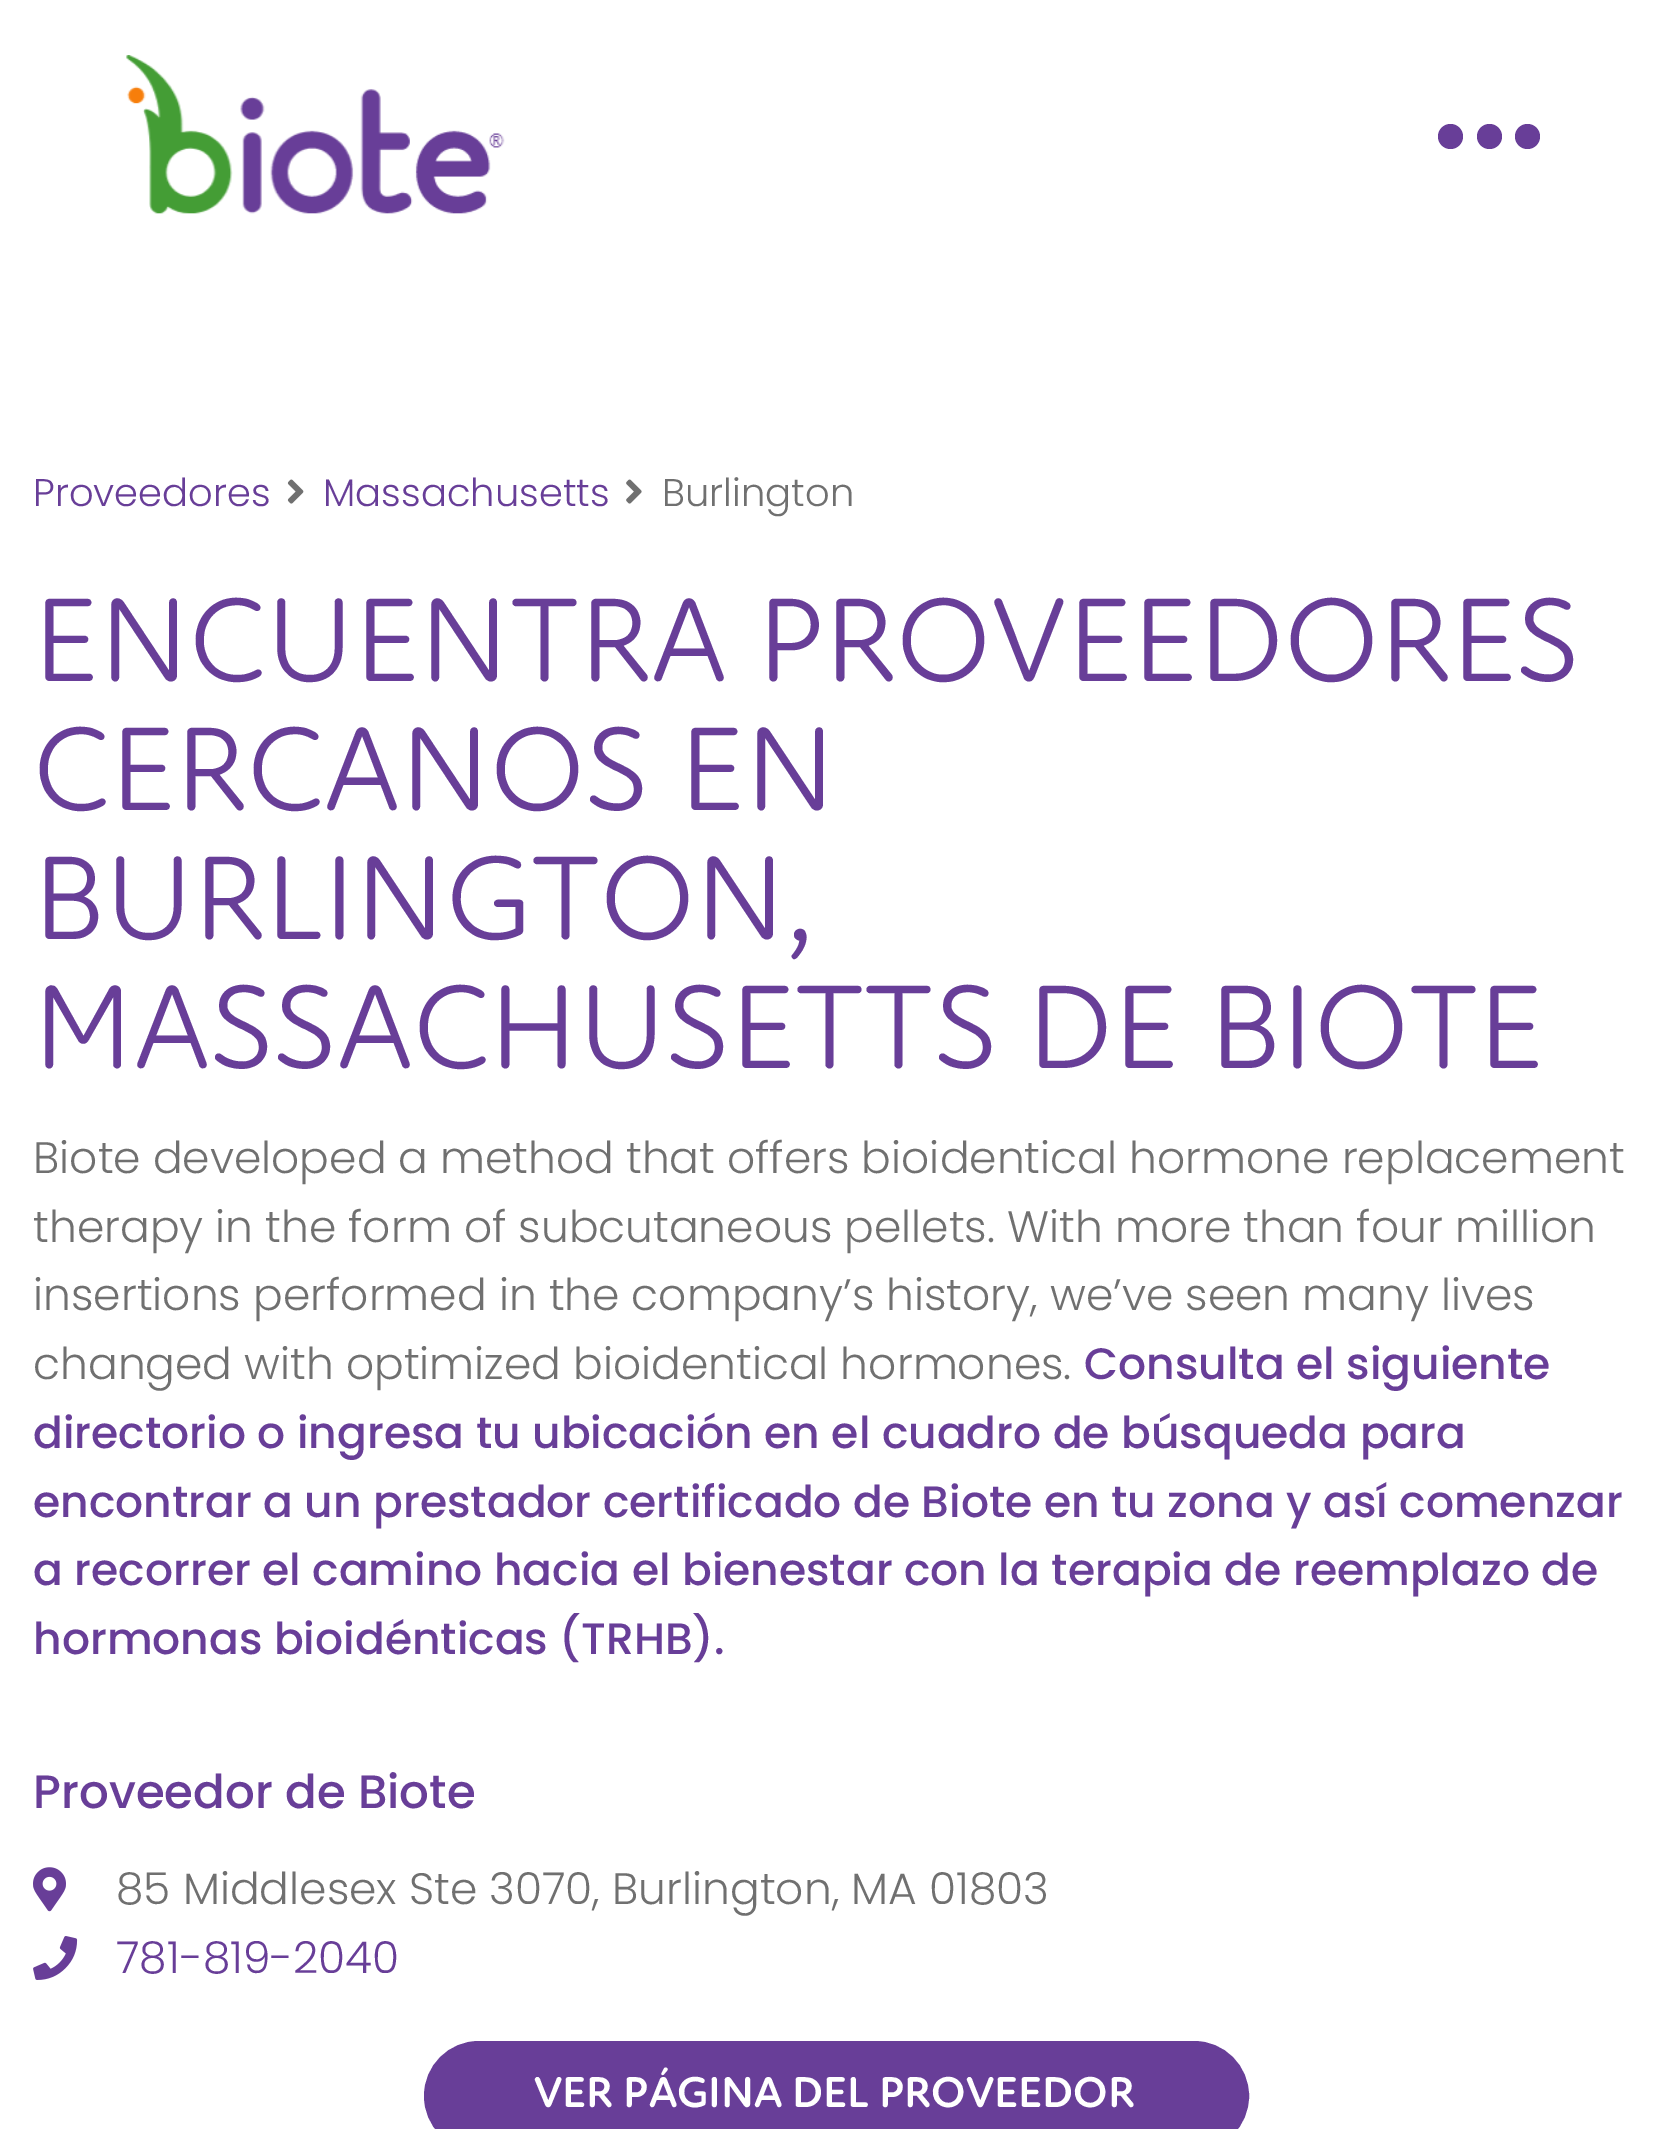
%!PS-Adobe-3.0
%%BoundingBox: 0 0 1667 2129
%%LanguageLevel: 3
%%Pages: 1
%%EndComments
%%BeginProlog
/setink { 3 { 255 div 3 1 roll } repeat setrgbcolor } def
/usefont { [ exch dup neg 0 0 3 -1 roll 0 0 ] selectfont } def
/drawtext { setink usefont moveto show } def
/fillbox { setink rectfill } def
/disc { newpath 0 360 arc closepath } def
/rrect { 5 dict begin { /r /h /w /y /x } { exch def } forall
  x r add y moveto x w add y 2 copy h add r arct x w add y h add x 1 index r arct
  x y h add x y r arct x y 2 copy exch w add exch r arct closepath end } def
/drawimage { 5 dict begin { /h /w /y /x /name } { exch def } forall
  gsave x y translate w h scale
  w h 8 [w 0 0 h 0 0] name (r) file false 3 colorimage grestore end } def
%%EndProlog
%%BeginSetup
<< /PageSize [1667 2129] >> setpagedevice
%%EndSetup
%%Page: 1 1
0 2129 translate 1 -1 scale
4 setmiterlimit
0 0 1667 2129 255 255 255 fillbox
(assets/img1.rgb) 126 55 379 159 drawimage
104 62 152 setink
1450.5 136.5 12.5 disc fill
1489.5 136.5 12.5 disc fill
1527.5 136.5 12.5 disc fill
(Proveedores) 33 506 /Poppins-Light 38.5 104 62 152 drawtext
(assets/img2.rgb) 287 479 17 25 drawimage
(Massachusetts) 323 506 /Poppins-Light 38.5 104 62 152 drawtext
(assets/img3.rgb) 626 479 16 25 drawimage
(Burlington) 662 506 /Poppins-Light 38.5 112 112 112 drawtext
(ENCUENTRA PROVEEDORES) 33 681 /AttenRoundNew-Regular 121 104 62 152 drawtext
(CERCANOS EN) 33 810 /AttenRoundNew-Regular 121 104 62 152 drawtext
(BURLINGTON,) 33 939 /AttenRoundNew-Regular 121 104 62 152 drawtext
(MASSACHUSETTS DE BIOTE) 33 1068 /AttenRoundNew-Regular 121 104 62 152 drawtext
(Biote developed a method that offers bioidentical hormone replacement) 33 1173 /Poppins-Light 44 112 112 112 drawtext
(therapy in the form of subcutaneous pellets. With more than four million) 33 1242 /Poppins-Light 44 112 112 112 drawtext
(insertions performed in the company’s history, we’ve seen many lives) 33 1310 /Poppins-Light 44 112 112 112 drawtext
(changed with optimized bioidentical hormones.) 33 1379 /Poppins-Light 44 112 112 112 drawtext
(Consulta el siguiente) 1084 1379 /Poppins-Medium 44 104 62 152 drawtext
(directorio o ingresa tu ubicación en el cuadro de búsqueda para) 33 1448 /Poppins-Medium 44 104 62 152 drawtext
(encontrar a un prestador certificado de Biote en tu zona y así comenzar) 33 1517 /Poppins-Medium 44 104 62 152 drawtext
(a recorrer el camino hacia el bienestar con la terapia de reemplazo de) 33 1585 /Poppins-Medium 44 104 62 152 drawtext
(hormonas bioidénticas \(TRHB\).) 33 1654 /Poppins-Medium 44 104 62 152 drawtext
(Proveedor de Biote) 33 1808 /Poppins-Medium 46.75 104 62 152 drawtext
(assets/img4.rgb) 33 1867 33 45 drawimage
(85 Middlesex Ste 3070, Burlington, MA 01803) 116 1904 /Poppins-Light 44 112 112 112 drawtext
(assets/img5.rgb) 33 1936 45 44 drawimage
(781-819-2040) 116 1973 /Poppins-Light 44 104 62 152 drawtext
428 2045 817 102 51 rrect gsave fill grestore
8 setlinewidth
stroke
(VER PÁGINA DEL PROVEEDOR) 534 2107 /AttenRoundNew-Bold 44 255 255 255 drawtext
showpage
%%EOF
